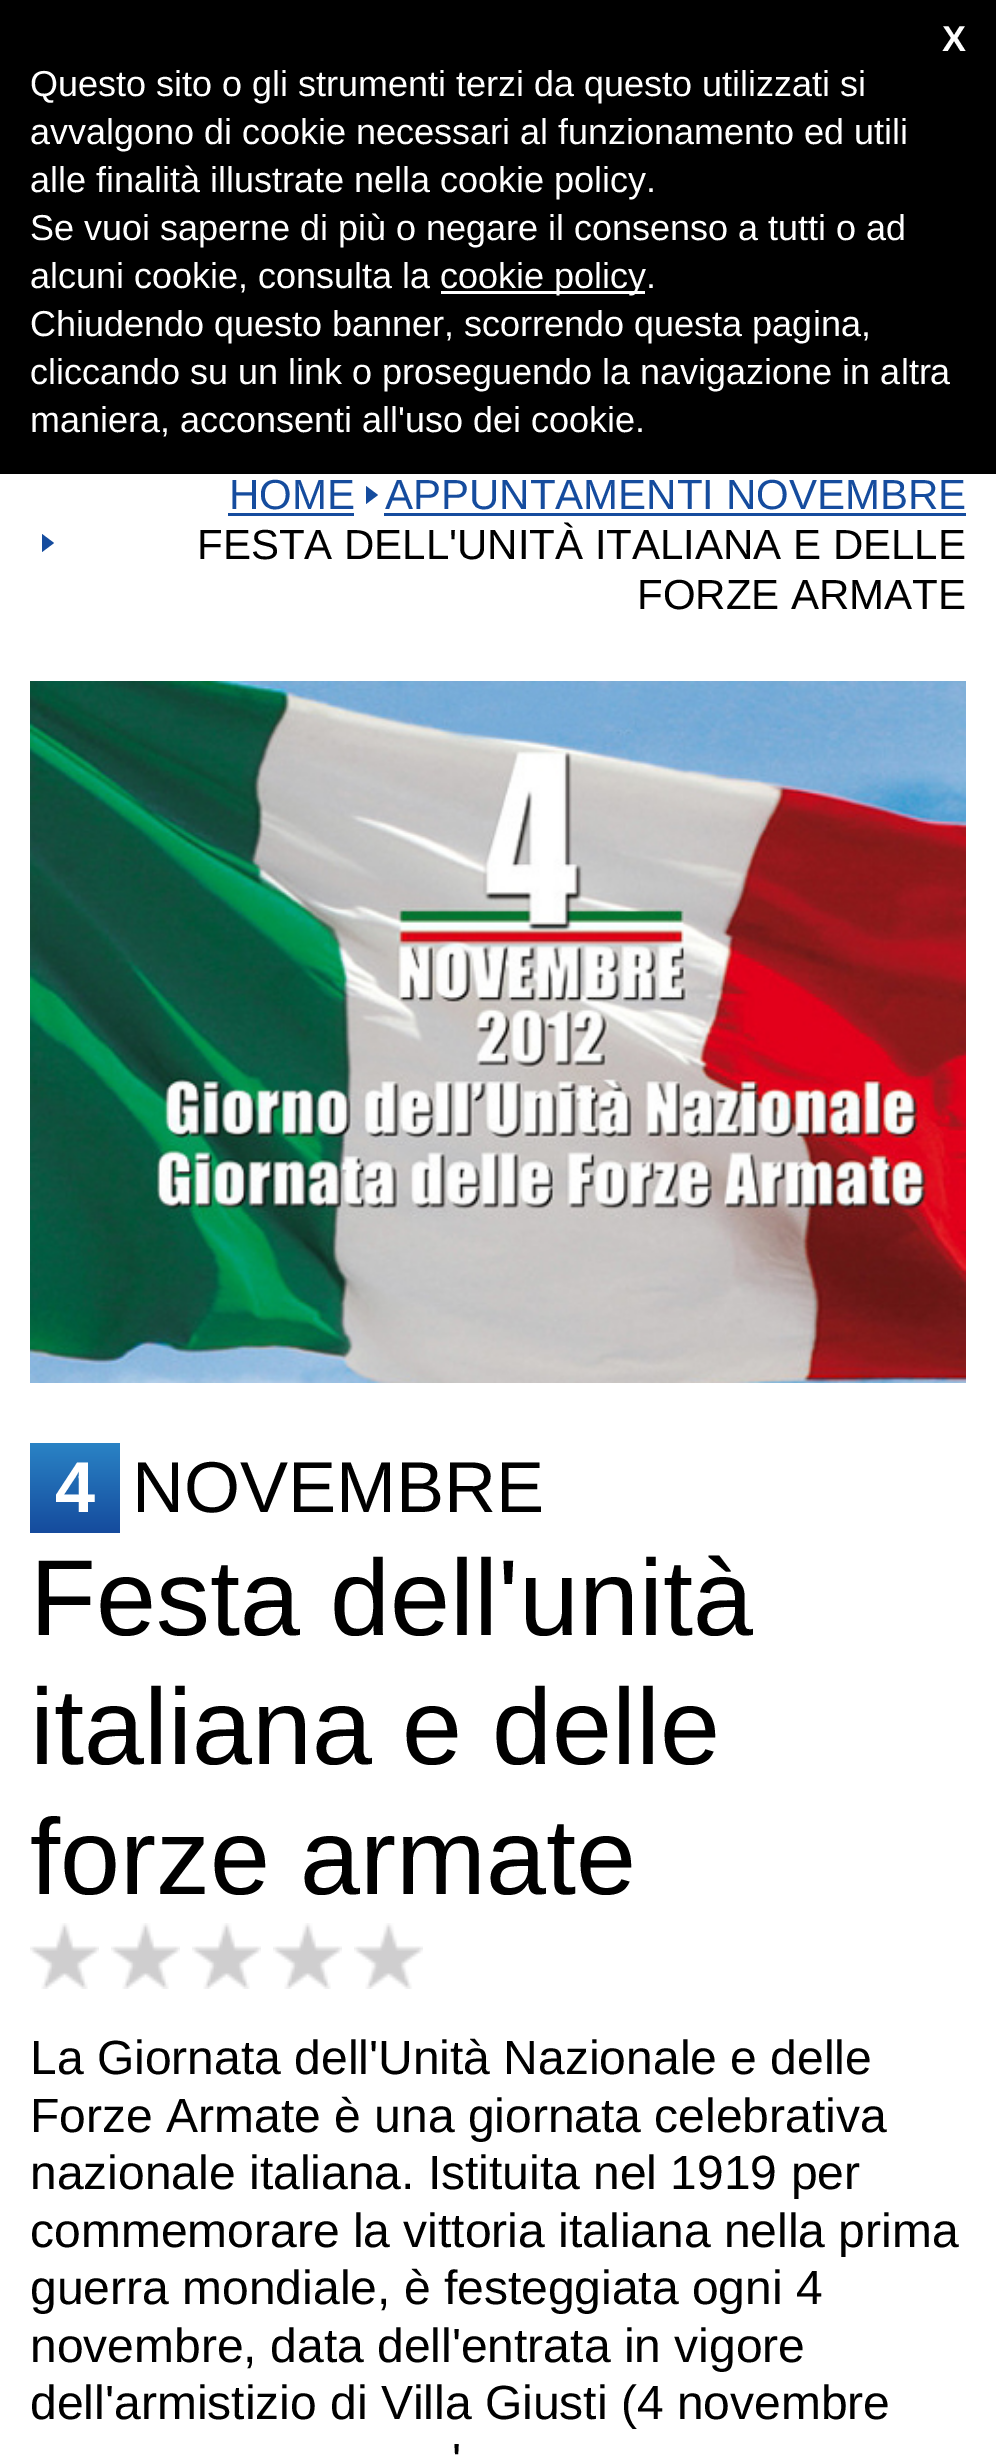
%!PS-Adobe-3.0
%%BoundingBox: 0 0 996 2460
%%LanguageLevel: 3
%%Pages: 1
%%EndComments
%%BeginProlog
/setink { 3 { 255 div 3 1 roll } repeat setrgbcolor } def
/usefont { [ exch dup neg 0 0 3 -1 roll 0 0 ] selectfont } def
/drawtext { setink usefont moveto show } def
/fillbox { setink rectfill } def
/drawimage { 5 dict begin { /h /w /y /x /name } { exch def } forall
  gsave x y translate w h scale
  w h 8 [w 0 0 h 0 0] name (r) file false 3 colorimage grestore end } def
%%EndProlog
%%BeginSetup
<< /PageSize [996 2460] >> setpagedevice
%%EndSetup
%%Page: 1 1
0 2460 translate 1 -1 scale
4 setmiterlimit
0 0 996 2460 255 255 255 fillbox
0 0 996 474 0 0 0 fillbox
(X) 942 51 /LiberationSans-Bold 36 255 255 255 drawtext
(Questo sito o gli strumenti terzi da questo utilizzati si) 30 96 /LiberationSans-Regular 36 255 255 255 drawtext
(avvalgono di cookie necessari al funzionamento ed utili) 30 144 /LiberationSans-Regular 36 255 255 255 drawtext
(alle finalità illustrate nella cookie policy.) 30 192 /LiberationSans-Regular 36 255 255 255 drawtext
(Se vuoi saperne di più o negare il consenso a tutti o ad) 30 240 /LiberationSans-Regular 36 255 255 255 drawtext
(alcuni cookie, consulta la) 30 288 /LiberationSans-Regular 36 255 255 255 drawtext
441 291 204 3 255 255 255 fillbox
(cookie policy.) 440 288 /LiberationSans-Regular 36 255 255 255 drawtext
(Chiudendo questo banner, scorrendo questa pagina,) 30 336 /LiberationSans-Regular 36 255 255 255 drawtext
(cliccando su un link o proseguendo la navigazione in altra) 30 384 /LiberationSans-Regular 36 255 255 255 drawtext
(maniera, acconsenti all'uso dei cookie.) 30 432 /LiberationSans-Regular 36 255 255 255 drawtext
(HOME) 229 509 /LiberationSans-Regular 42 21 76 158 drawtext
228 513 126 3 21 76 158 fillbox
366 504 moveto 366 486 lineto 378 495 lineto closepath fill
(APPUNTAMENTI NOVEMBRE) 385 509 /LiberationSans-Regular 42 21 76 158 drawtext
384 513 582 3 21 76 158 fillbox
42 552 moveto 42 534 lineto 54 543 lineto closepath fill
(FESTA DELL'UNITÀ ITALIANA E DELLE) 197 559 /LiberationSans-Regular 42 0 0 0 drawtext
(FORZE ARMATE) 637 609 /LiberationSans-Regular 42 0 0 0 drawtext
(assets/img1.rgb) 30 681 936 702 drawimage
gsave 30 1443 moveto 120 1443 lineto 120 1533 lineto 30 1533 lineto closepath clip newpath
<< /ShadingType 2 /ColorSpace /DeviceRGB /Coords [75 1443 75 1533] /Extend [true true] /Function << /FunctionType 2 /Domain [0 1] /C0 [0.165 0.514 0.773] /C1 [0.082 0.294 0.616] /N 1 >> >> shfill grestore
(4) 55 1512 /LiberationSans-Bold 72 255 255 255 drawtext
(NOVEMBRE) 132 1512 /LiberationSans-Regular 72 0 0 0 drawtext
(Festa dell'unità) 30 1635 /LiberationSans-Regular 108 0 0 0 drawtext
(italiana e delle) 30 1764 /LiberationSans-Regular 108 0 0 0 drawtext
(forze armate) 30 1894 /LiberationSans-Regular 108 0 0 0 drawtext
(assets/img2.rgb) 30 1923 69 66 drawimage
(assets/img2.rgb) 111 1923 69 66 drawimage
(assets/img2.rgb) 192 1923 69 66 drawimage
(assets/img3.rgb) 273 1923 69 66 drawimage
(assets/img4.rgb) 354 1923 69 66 drawimage
(La Giornata dell'Unità Nazionale e delle) 30 2074 /LiberationSans-Regular 48 0 0 0 drawtext
(Forze Armate è una giornata celebrativa) 30 2132 /LiberationSans-Regular 48 0 0 0 drawtext
(nazionale italiana. Istituita nel 1919 per) 30 2189 /LiberationSans-Regular 48 0 0 0 drawtext
(commemorare la vittoria italiana nella prima) 30 2247 /LiberationSans-Regular 48 0 0 0 drawtext
(guerra mondiale, è festeggiata ogni 4) 30 2304 /LiberationSans-Regular 48 0 0 0 drawtext
(novembre, data dell'entrata in vigore) 30 2362 /LiberationSans-Regular 48 0 0 0 drawtext
(dell'armistizio di Villa Giusti \(4 novembre) 30 2419 /LiberationSans-Regular 48 0 0 0 drawtext
(') 452 2477 /LiberationSans-Regular 48 0 0 0 drawtext
showpage
%%EOF
